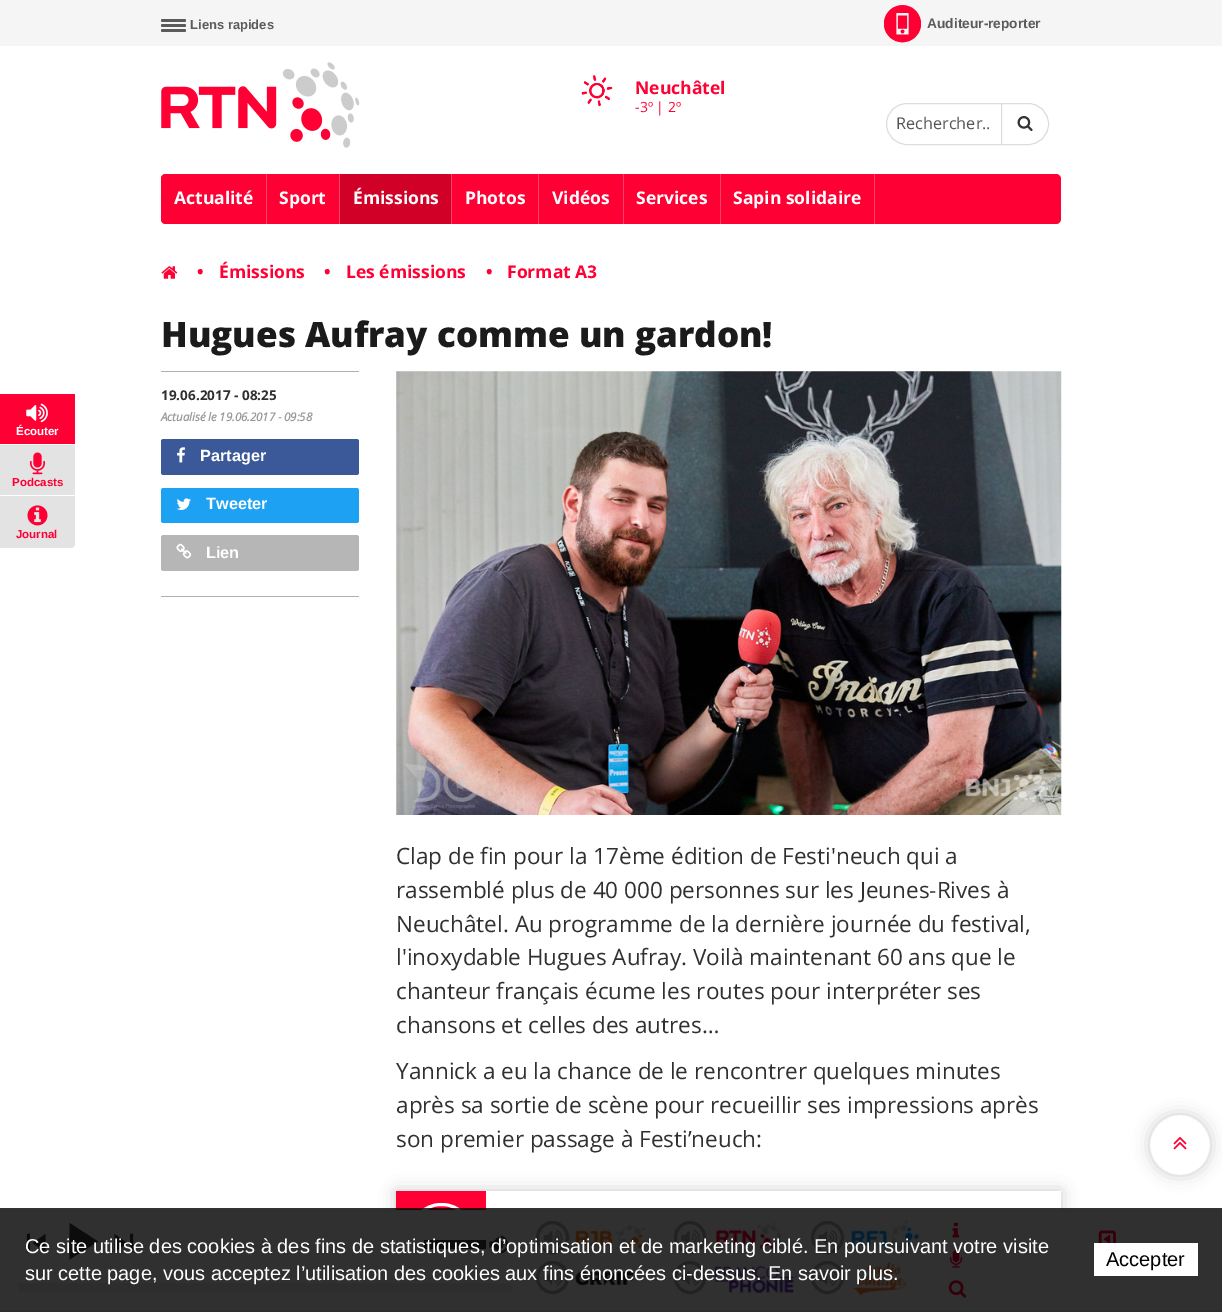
%!PS-Adobe-3.0
%%BoundingBox: 0 0 1222 1312
%%LanguageLevel: 3
%%Pages: 1
%%EndComments
%%BeginProlog
/setink { 3 { 255 div 3 1 roll } repeat setrgbcolor } def
/usefont { [ exch dup neg 0 0 3 -1 roll 0 0 ] selectfont } def
/drawtext { setink usefont moveto show } def
/fillbox { setink rectfill } def
/setalpha { dup .setfillconstantalpha .setstrokeconstantalpha } def
/disc { newpath 0 360 arc closepath } def
/rrect { 5 dict begin { /r /h /w /y /x } { exch def } forall
  x r add y moveto x w add y 2 copy h add r arct x w add y h add x 1 index r arct
  x y h add x y r arct x y 2 copy exch w add exch r arct closepath end } def
/softshadow { 12 dict begin { /a /b /q /h /w /y /x } { exch def } forall gsave /was 0 def
  9 -2 -9 { dup b mul 4 div /e exch def 1 sub .425 mul 2.718 exch exp 1 add a .99 .min exch div /now exch def
    1 1 now sub 1 was sub div sub setalpha /was now def
    w h .min e 2 mul add 0 gt { x e sub y e sub w e 2 mul add h e 2 mul add
      q e add b .6 mul add w h .min 2 div e add .min 0 .max rrect fill } if } for grestore end } def
/drawimage { 5 dict begin { /h /w /y /x /name } { exch def } forall
  gsave x y translate w h scale
  w h 8 [w 0 0 h 0 0] name (r) file false 3 colorimage grestore end } def
%%EndProlog
%%BeginSetup
<< /PageSize [1222 1312] /PageUsesTransparency true >> setpagedevice
%%EndSetup
%%Page: 1 1
0 .pushpdf14devicefilter
0 1312 translate 1 -1 scale
4 setmiterlimit
0 0 1222 1312 255 255 255 fillbox
0 0 1222 46 245 245 245 fillbox
91 91 91 setink
161 24 25 3 1.5 rrect fill
161 19 25 3 1.5 rrect fill
161 29 25 3 1.5 rrect fill
(Liens rapides) 190 29 /LiberationSans-Bold 13 91 91 91 drawtext
(assets/img1.rgb) 884 5 37 38 drawimage
(Auditeur-reporter) 927 28 /LiberationSans-Bold 13.75 91 91 91 drawtext
(assets/img2.rgb) 161 62 199 86 drawimage
(assets/img3.rgb) 581 75 32 32 drawimage
(Neuchâtel) 635 94 /OpenSans-Bold 17.5 254 0 52 drawtext
(-3º | 2º) 635 112 /OpenSans-Regular 14 254 0 52 drawtext
161 174 900 50 5 rrect fill
221 221 221 setink
907 103.5 moveto 1002.5 103.5 lineto 1002.5 144.5 lineto 907 144.5 lineto 895.5 144.5 886.5 135.5 886.5 124 curveto 886.5 112.5 895.5 103.5 907 103.5 curveto closepath stroke
(Rechercher..) 896 129 /OpenSans-Regular 16.25 85 85 85 drawtext
255 255 255 setink
1001.5 103.5 moveto 1028 103.5 lineto 1039.5 103.5 1048.5 112.5 1048.5 124 curveto 1048.5 135.5 1039.5 144.5 1028 144.5 curveto 1001.5 144.5 lineto closepath gsave fill grestore
221 221 221 setink
stroke
(assets/img4.rgb) 1017 116 16 16 drawimage
266 174 1 50 248 67 104 fillbox
254 0 52 setink
166 174 moveto 266 174 lineto 266 224 lineto 166 224 lineto 163 224 161 222 161 219 curveto 161 179 lineto 161 176 163 174 166 174 curveto closepath fill
(Actualité) 174 204 /OpenSans-Bold 17.5 255 255 255 drawtext
339 174 1 50 248 67 104 fillbox
(Sport) 279 204 /OpenSans-Bold 17.5 255 255 255 drawtext
451 174 1 50 248 67 104 fillbox
340 174 111 50 208 0 39 fillbox
(Émissions) 353 204 /OpenSans-Bold 17.5 255 255 255 drawtext
538 174 1 50 248 67 104 fillbox
(Photos) 465 204 /OpenSans-Bold 17.5 255 255 255 drawtext
623 174 1 50 248 67 104 fillbox
(Vidéos) 552 204 /OpenSans-Bold 17.5 255 255 255 drawtext
720 174 1 50 248 67 104 fillbox
(Services) 636 204 /OpenSans-Bold 17.5 255 255 255 drawtext
874 174 1 50 248 67 104 fillbox
(Sapin solidaire) 733 204 /OpenSans-Bold 17.5 255 255 255 drawtext
0 394 75 50 254 0 52 fillbox
(assets/img5.rgb) 26 403 22 20 drawimage
(Écouter) 16 435 /LiberationSans-Bold 11.5 255 255 255 drawtext
0 445 75 50 227 227 227 fillbox
(assets/img6.rgb) 30 452 15 23 drawimage
(Podcasts) 12 486 /LiberationSans-Bold 11.5 254 0 52 drawtext
227 227 227 setink
0 496 moveto 75 496 lineto 75 544 lineto 75 546 73 548 71 548 curveto 0 548 lineto closepath fill
(assets/img7.rgb) 27 505 21 21 drawimage
(Journal) 16 538 /LiberationSans-Bold 11.5 254 0 52 drawtext
(assets/img8.rgb) 161 266 17 13 drawimage
(•) 197 278 /OpenSans-Bold 17.5 254 0 52 drawtext
(Émissions) 219 278 /OpenSans-Bold 17.5 254 0 52 drawtext
(•) 324 278 /OpenSans-Bold 17.5 254 0 52 drawtext
(Les émissions) 346 278 /OpenSans-Bold 17.5 254 0 52 drawtext
(•) 486 278 /OpenSans-Bold 17.5 254 0 52 drawtext
(Format A3) 507 278 /OpenSans-Bold 17.5 254 0 52 drawtext
(Hugues Aufray comme un gardon!) 161 347 /OpenSans-ExtraBold 35 27 27 27 drawtext
161 371 198 1 174 175 177 fillbox
161 596 198 1 174 175 177 fillbox
(19.06.2017 - 08:25) 161 400 /OpenSans-Bold 13.5 48 48 48 drawtext
/OpenSans-BoldItalic 11.5 usefont
153 153 153 setink
161 421 moveto -0.1 0 (Actualisé le 19.06.2017 - 09:58) ashow
59 89 152 setink
161 439 198 36 2.5 rrect fill
(assets/img9.rgb) 177 447 8 16 drawimage
(Partager) 200 461 /LiberationSans-Bold 16.25 255 255 255 drawtext
29 161 242 setink
161 488 198 35 2.5 rrect fill
(assets/img10.rgb) 176 498 15 12 drawimage
(Tweeter) 206 509 /LiberationSans-Bold 16.25 255 255 255 drawtext
182 182 182 setink
161 535 198 36 2.5 rrect fill
(assets/img11.rgb) 176 543 16 16 drawimage
(Lien) 206 558 /LiberationSans-Bold 16.25 255 255 255 drawtext
(assets/img12.rgb) 396 371 666 444 drawimage
(Clap de fin pour la 17ème édition de Festi'neuch qui a) 396 864 /OpenSans-Regular 22.5 48 48 48 drawtext
(rassemblé plus de 40 000 personnes sur les Jeunes-Rives à) 396 898 /OpenSans-Regular 22.5 48 48 48 drawtext
(Neuchâtel. Au programme de la dernière journée du festival,) 396 932 /OpenSans-Regular 22.5 48 48 48 drawtext
(l'inoxydable Hugues Aufray. Voilà maintenant 60 ans que le) 396 965 /OpenSans-Regular 22.5 48 48 48 drawtext
(chanteur français écume les routes pour interpréter ses) 396 999 /OpenSans-Regular 22.5 48 48 48 drawtext
(chansons et celles des autres…) 396 1033 /OpenSans-Regular 22.5 48 48 48 drawtext
(Yannick a eu la chance de le rencontrer quelques minutes) 396 1079 /OpenSans-Regular 22.5 48 48 48 drawtext
(après sa sortie de scène pour recueillir ses impressions après) 396 1113 /OpenSans-Regular 22.5 48 48 48 drawtext
(son premier passage à Festi’neuch:) 396 1147 /OpenSans-Regular 22.5 48 48 48 drawtext
gsave
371 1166 moveto 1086 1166 lineto 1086 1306 lineto 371 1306 lineto closepath 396 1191 moveto 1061 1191 lineto 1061 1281 lineto 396 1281 lineto closepath eoclip newpath
0 0 0 setink
396 1191 665 90 0 8 0.2 softshadow
grestore
396 1191 90 19 254 0 52 fillbox
255 255 255 setink
3 setlinewidth
411.5 1204.5 60 59 29.5 rrect stroke
gsave
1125 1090 moveto 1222 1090 lineto 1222 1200 lineto 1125 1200 lineto closepath 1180 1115 moveto 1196.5 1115 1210 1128.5 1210 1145 curveto 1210 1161.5 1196.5 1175 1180 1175 curveto 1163.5 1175 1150 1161.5 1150 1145 curveto 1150 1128.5 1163.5 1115 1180 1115 curveto closepath eoclip newpath
0 0 0 setink
1150 1115 60 60 30 8 0.2 softshadow
grestore
0.6 setalpha
1180 1145 30 disc fill
1 setalpha
(assets/img13.rgb) 1173 1136 14 14 drawimage
0 1211 1222 100 240 240 240 fillbox
0 1210 1222 1 224 224 224 fillbox
0 1311 1222 1 224 224 224 fillbox
(assets/img14.rgb) 26 1233 20 20 drawimage
60 60 60 setink
69.5 1223 moveto 98 1241.5 lineto 69.5 1259.5 lineto closepath fill
(assets/img15.rgb) 114 1233 20 20 drawimage
424 1240 62 9 60 60 60 fillbox
(assets/img16.rgb) 489 1235 20 19 drawimage
227 227 227 setink
1 setlinewidth
18.5 1283.5 492 7 rectstroke
19 1284 491 6 227 227 227 fillbox
(assets/img17.rgb) 575 1223 71 27 drawimage
169 169 169 setink
3 setlinewidth
552.5 1237.5 15 disc stroke
(assets/img18.rgb) 543 1230 20 16 drawimage
(assets/img19.rgb) 674 1222 110 30 drawimage
240 240 240 setink
675.5 1222.5 29 30 14.5 rrect gsave fill grestore
169 169 169 setink
stroke
(assets/img20.rgb) 681 1230 19 16 drawimage
(assets/img21.rgb) 851 1220 69 36 drawimage
827.5 1237.5 15 disc stroke
(assets/img18.rgb) 818 1230 20 16 drawimage
(assets/img22.rgb) 575 1271 60 15 drawimage
552.5 1277.5 15 disc stroke
(assets/img18.rgb) 543 1270 20 16 drawimage
(assets/img23.rgb) 715 1265 80 28 drawimage
675.5 1262.5 29 30 14.5 rrect stroke
(assets/img20.rgb) 681 1270 19 16 drawimage
(assets/img24.rgb) 853 1261 54 35 drawimage
827.5 1277.5 15 disc stroke
(assets/img18.rgb) 818 1270 20 16 drawimage
(assets/img25.rgb) 952 1222 8 16 drawimage
(assets/img26.rgb) 950 1250 13 18 drawimage
(assets/img27.rgb) 948 1280 19 18 drawimage
(assets/img28.rgb) 1098 1230 18 13 drawimage
0.8 setalpha
0 1208 1222 104 0 0 0 fillbox
1 setalpha
(Ce site utilise des cookies à des fins de statistiques, d’optimisation et de marketing ciblé. En poursuivant votre visite) 25 1253 /LiberationSans-Regular 20 255 255 255 drawtext
(sur cette page, vous acceptez l’utilisation des cookies aux fins énoncées ci-dessus. En savoir plus.) 25 1280 /LiberationSans-Regular 20 255 255 255 drawtext
1094 1243 104 33 255 255 255 fillbox
(Accepter) 1106 1266 /LiberationSans-Regular 20 0 0 0 drawtext
.poppdf14devicefilter showpage
%%EOF
